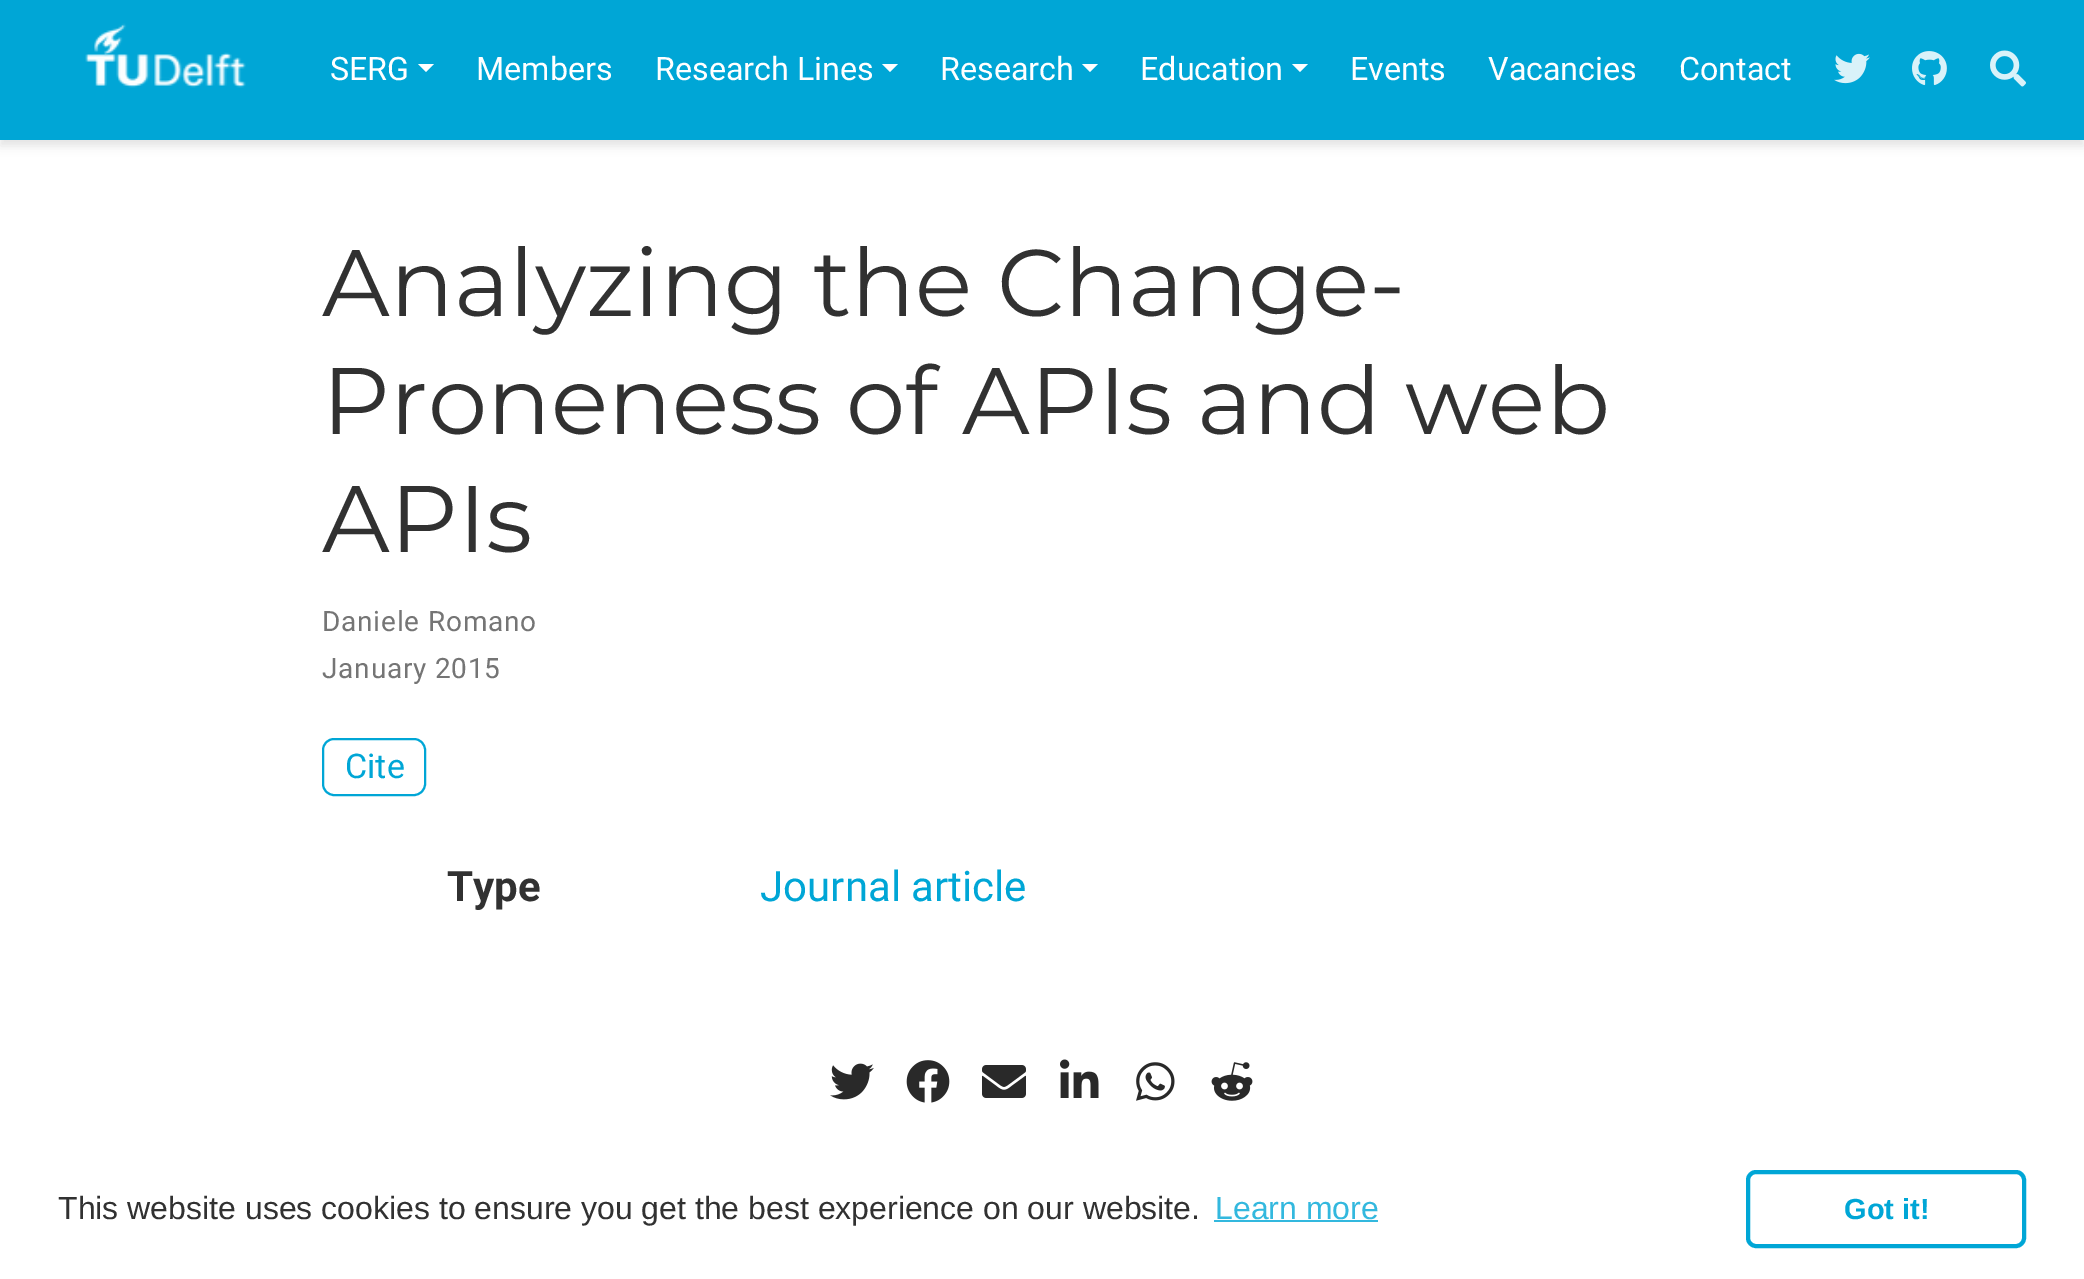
%!PS-Adobe-3.0
%%BoundingBox: 0 0 2084 1279
%%LanguageLevel: 3
%%Pages: 1
%%EndComments
%%BeginProlog
/setink { 3 { 255 div 3 1 roll } repeat setrgbcolor } def
/usefont { [ exch dup neg 0 0 3 -1 roll 0 0 ] selectfont } def
/drawtext { setink usefont moveto show } def
/fillbox { setink rectfill } def
/setalpha { dup .setfillconstantalpha .setstrokeconstantalpha } def
/rrect { 5 dict begin { /r /h /w /y /x } { exch def } forall
  x r add y moveto x w add y 2 copy h add r arct x w add y h add x 1 index r arct
  x y h add x y r arct x y 2 copy exch w add exch r arct closepath end } def
/softshadow { 12 dict begin { /a /b /q /h /w /y /x } { exch def } forall gsave /was 0 def
  9 -2 -9 { dup b mul 4 div /e exch def 1 sub .425 mul 2.718 exch exp 1 add a .99 .min exch div /now exch def
    1 1 now sub 1 was sub div sub setalpha /was now def
    w h .min e 2 mul add 0 gt { x e sub y e sub w e 2 mul add h e 2 mul add
      q e add b .6 mul add w h .min 2 div e add .min 0 .max rrect fill } if } for grestore end } def
/drawimage { 5 dict begin { /h /w /y /x /name } { exch def } forall
  gsave x y translate w h scale
  w h 8 [w 0 0 h 0 0] name (r) file false 3 colorimage grestore end } def
%%EndProlog
%%BeginSetup
<< /PageSize [2084 1279] /PageUsesTransparency true >> setpagedevice
%%EndSetup
%%Page: 1 1
0 .pushpdf14devicefilter
0 1279 translate 1 -1 scale
4 setmiterlimit
0 0 2084 1279 255 255 255 fillbox
0 0 0 setink
0 6 2084 140 0 5 0.11 softshadow
0 0 2084 140 0 166 214 fillbox
(assets/img1.rgb) 85 23 161 65 drawimage
(SERG) 330 80 /Roboto-Regular 32.25 255 255 255 drawtext
418 64 moveto 434 64 lineto 426 72 lineto closepath fill
(Members) 476 80 /Roboto-Regular 32.25 255 255 255 drawtext
(Research Lines) 655 80 /Roboto-Regular 32.25 255 255 255 drawtext
882 64 moveto 898 64 lineto 890 72 lineto closepath fill
(Research) 940 80 /Roboto-Regular 32.25 255 255 255 drawtext
1082 64 moveto 1098 64 lineto 1090 72 lineto closepath fill
(Education) 1140 80 /Roboto-Regular 32.25 255 255 255 drawtext
1292 64 moveto 1308 64 lineto 1300 72 lineto closepath fill
(Events) 1350 80 /Roboto-Regular 32.25 255 255 255 drawtext
(Vacancies) 1488 80 /Roboto-Regular 32.25 255 255 255 drawtext
(Contact) 1679 80 /Roboto-Regular 32.25 255 255 255 drawtext
(assets/img2.rgb) 1834 53 36 31 drawimage
(assets/img3.rgb) 1912 51 35 35 drawimage
(assets/img4.rgb) 1990 50 36 37 drawimage
(Analyzing the Change-) 322 316 /Montserrat-Regular 94.5 49 49 49 drawtext
(Proneness of APIs and web) 322 434 /Montserrat-Regular 94.5 49 49 49 drawtext
(APIs) 322 552 /Montserrat-Regular 94.5 49 49 49 drawtext
/Roboto-Regular 28 usefont
117 117 117 setink
322 631 moveto 0.8 0 (Daniele Romano) ashow
322 678 moveto 0.8 0 (January 2015) ashow
0 166 214 setink
2 setlinewidth
323 739 102 56 11 rrect stroke
(Cite) 345 778 /Roboto-Regular 34 0 166 214 drawtext
(Type) 447 901 /Roboto-Bold 42 49 49 49 drawtext
(Journal article) 760 901 /Roboto-Regular 42 0 166 214 drawtext
(assets/img5.rgb) 830 1063 44 37 drawimage
(assets/img6.rgb) 906 1060 44 43 drawimage
(assets/img7.rgb) 982 1065 44 33 drawimage
(assets/img8.rgb) 1060 1059 39 39 drawimage
(assets/img9.rgb) 1136 1062 39 39 drawimage
(assets/img10.rgb) 1211 1062 42 39 drawimage
(This website uses cookies to ensure you get the best experience on our website.) 58 1219 /LiberationSans-Regular 32 49 49 49 drawtext
(Learn more) 1215 1219 /LiberationSans-Regular 32 51 184 222 drawtext
1214 1220 164 2 51 184 222 fillbox
0 166 214 setink
4 setlinewidth
1748 1172 276 74 8 rrect stroke
(Got it!) 1844 1219 /LiberationSans-Bold 29 0 166 214 drawtext
.poppdf14devicefilter showpage
%%EOF
